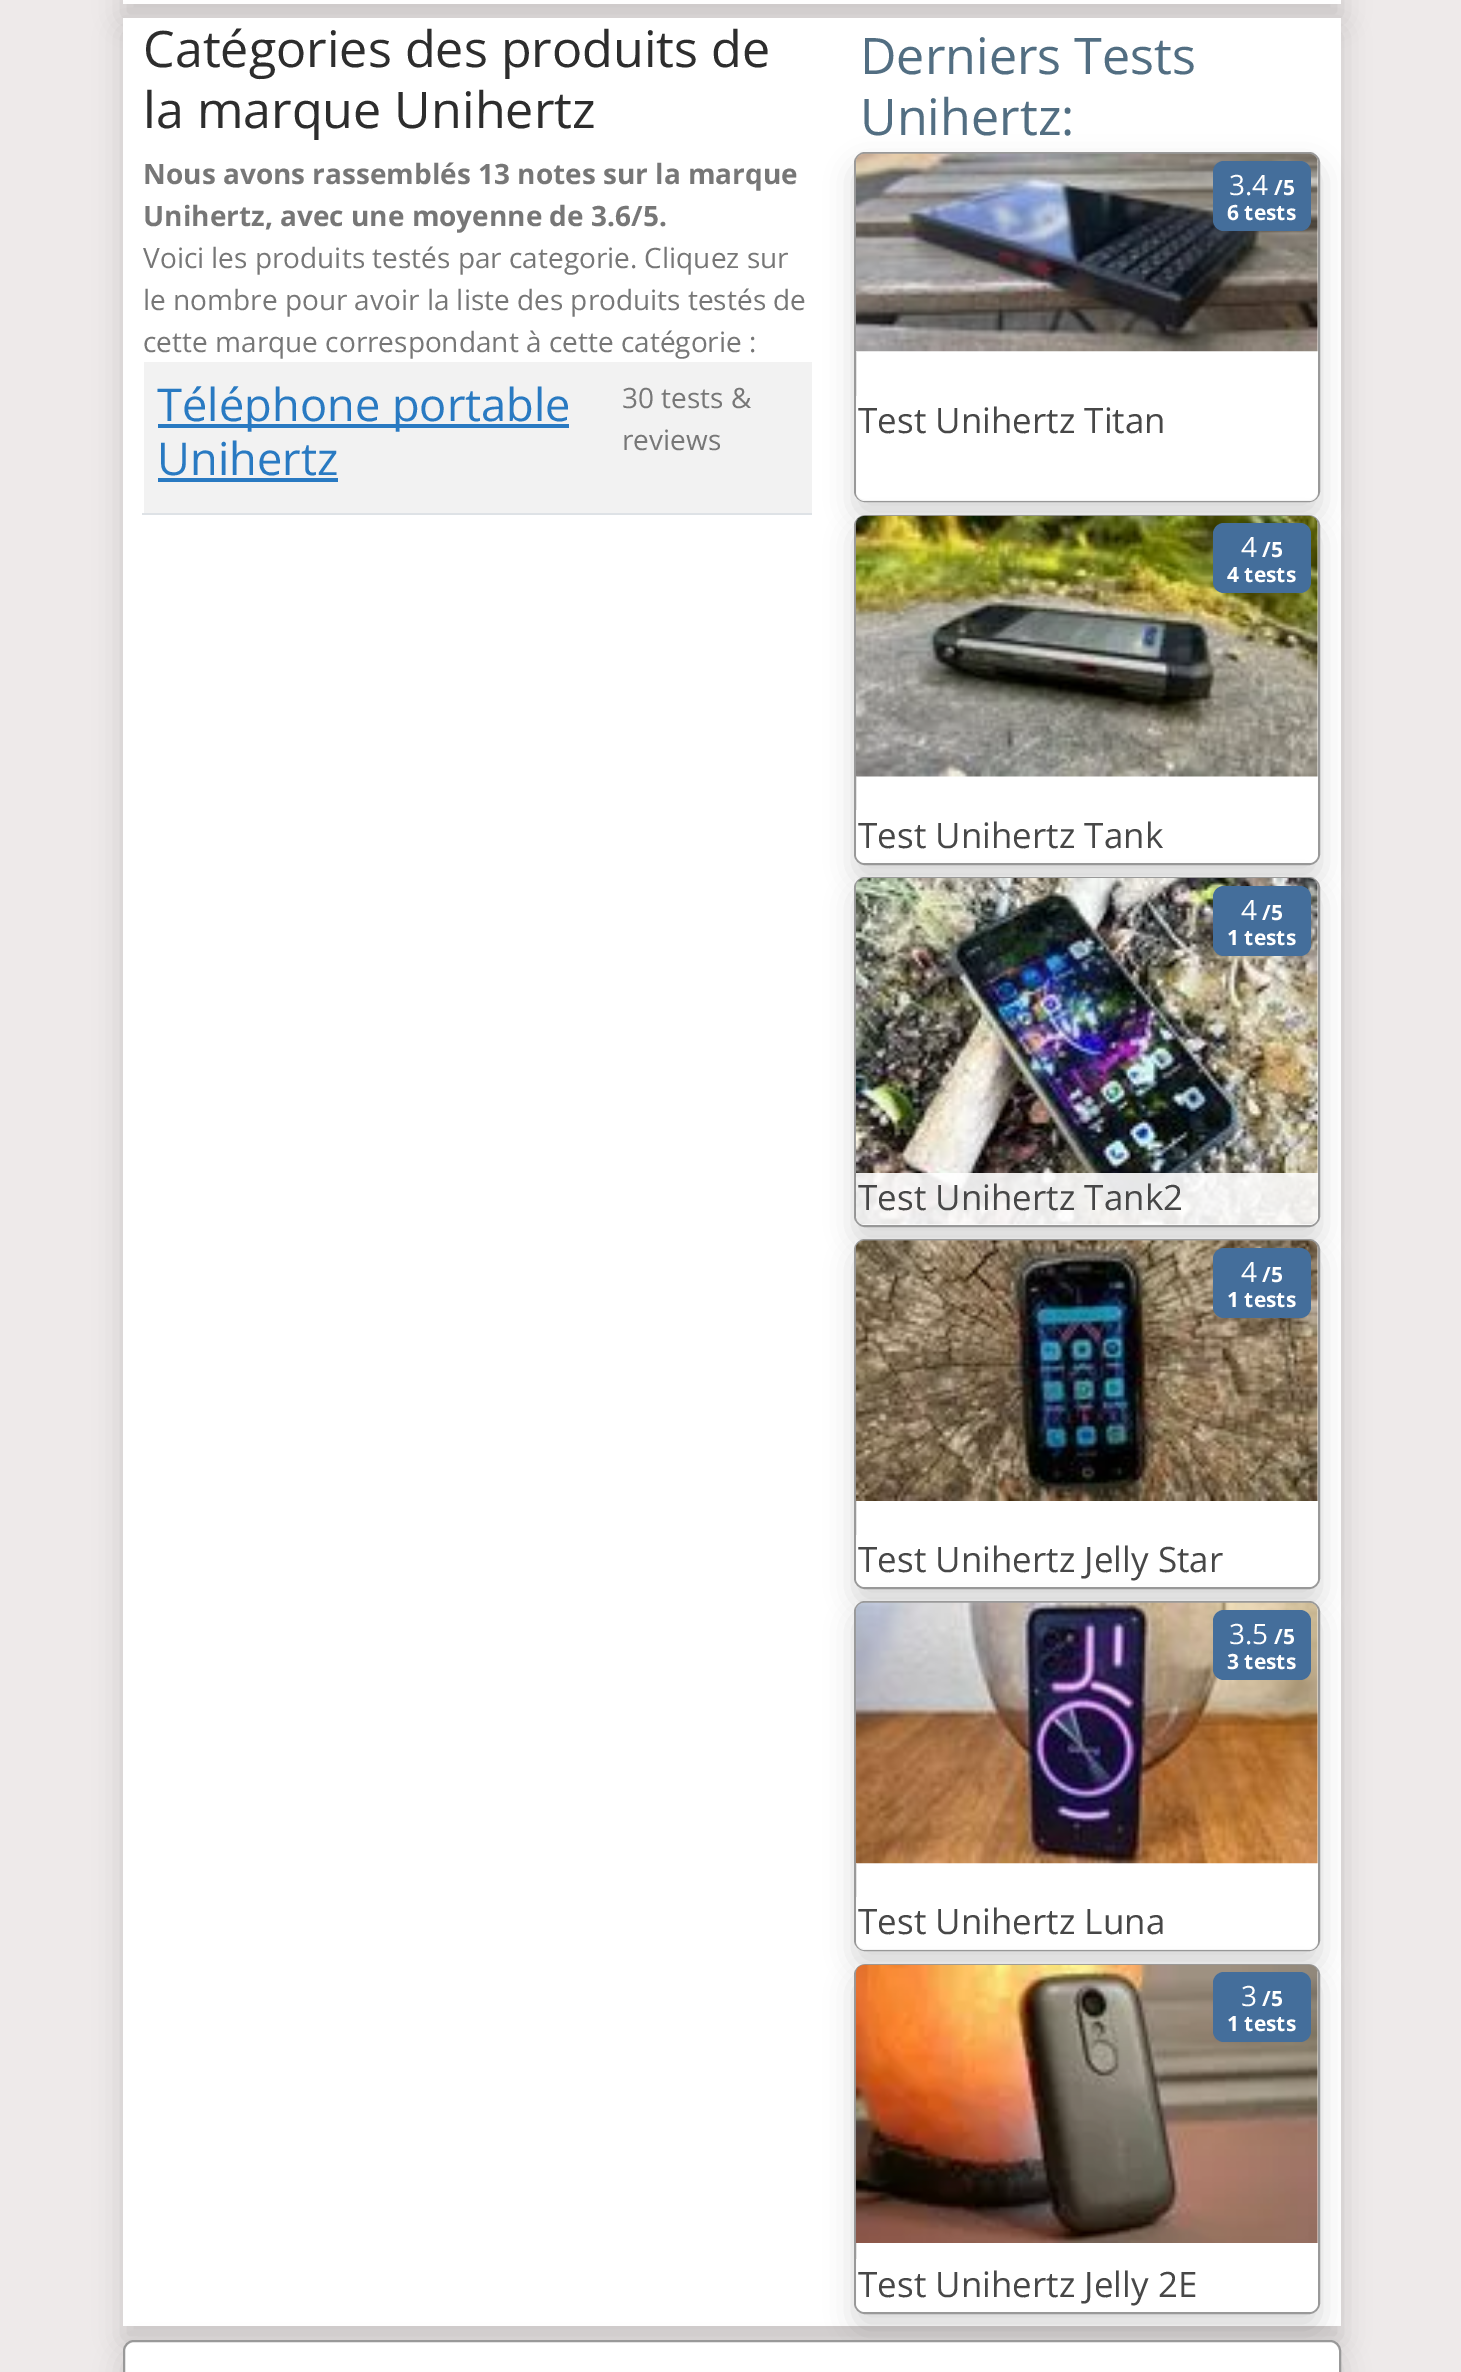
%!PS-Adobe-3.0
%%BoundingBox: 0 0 1461 2372
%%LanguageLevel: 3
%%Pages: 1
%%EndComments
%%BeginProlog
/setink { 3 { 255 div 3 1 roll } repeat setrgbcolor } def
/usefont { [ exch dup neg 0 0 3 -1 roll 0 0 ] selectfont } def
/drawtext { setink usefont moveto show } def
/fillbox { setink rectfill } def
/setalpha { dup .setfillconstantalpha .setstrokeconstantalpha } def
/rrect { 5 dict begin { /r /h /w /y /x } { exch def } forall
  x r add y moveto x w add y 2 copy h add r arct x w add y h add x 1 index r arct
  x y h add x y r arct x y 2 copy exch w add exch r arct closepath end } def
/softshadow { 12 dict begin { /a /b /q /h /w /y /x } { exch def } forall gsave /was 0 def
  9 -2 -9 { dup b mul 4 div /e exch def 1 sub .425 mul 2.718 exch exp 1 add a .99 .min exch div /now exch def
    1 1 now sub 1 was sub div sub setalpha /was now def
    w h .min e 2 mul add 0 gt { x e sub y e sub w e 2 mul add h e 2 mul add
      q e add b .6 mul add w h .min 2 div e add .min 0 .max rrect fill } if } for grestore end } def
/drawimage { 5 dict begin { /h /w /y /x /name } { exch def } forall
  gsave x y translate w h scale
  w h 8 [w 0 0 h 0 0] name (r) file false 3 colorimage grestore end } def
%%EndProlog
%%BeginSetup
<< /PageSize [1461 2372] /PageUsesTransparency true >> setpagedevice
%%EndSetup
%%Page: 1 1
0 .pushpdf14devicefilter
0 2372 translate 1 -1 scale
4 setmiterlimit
0 0 1461 2372 238 234 234 fillbox
0 0 0 setink
123 -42 1218 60 0 14 0.15 softshadow
123 0 1218 4 255 255 255 fillbox
0 0 0 setink
123 32 1218 2308 0 14 0.15 softshadow
123 18 1218 2308 255 255 255 fillbox
(Catégories des produits de) 143 67 /OpenSans-Regular 50.25 45 45 45 drawtext
(la marque Unihertz) 143 128 /OpenSans-Regular 50.25 45 45 45 drawtext
(Nous avons rassemblés 13 notes sur la marque) 143 184 /OpenSans-Bold 28 119 119 119 drawtext
(Unihertz, avec une moyenne de 3.6/5.) 143 226 /OpenSans-Bold 28 119 119 119 drawtext
(Voici les produits testés par categorie. Cliquez sur) 143 268 /OpenSans-Regular 28 119 119 119 drawtext
(le nombre pour avoir la liste des produits testés de) 143 310 /OpenSans-Regular 28 119 119 119 drawtext
(cette marque correspondant à cette catégorie :) 143 352 /OpenSans-Regular 28 119 119 119 drawtext
144 362 668 151 242 242 242 fillbox
158 424 411 4 41 122 194 fillbox
(Téléphone portable) 157 421 /OpenSans-Regular 45.25 41 122 194 drawtext
(Unihertz) 157 475 /OpenSans-Regular 45.25 41 122 194 drawtext
158 478 180 4 41 122 194 fillbox
142 513 670 2 222 226 230 fillbox
(30 tests &) 622 408 /OpenSans-Regular 28 119 119 119 drawtext
(reviews) 622 450 /OpenSans-Regular 28 119 119 119 drawtext
(Derniers Tests) 860 74 /OpenSans-Regular 50.25 82 110 130 drawtext
(Unihertz:) 860 135 /OpenSans-Regular 50.25 82 110 130 drawtext
0 0 0 setink
854 166 466 350 11 14 0.15 softshadow
255 255 255 setink
855 153 464 348 10 rrect gsave fill grestore
153 153 153 setink
2 setlinewidth
stroke
(assets/img1.rgb) 855 153 463 199 drawimage
68 110 155 setink
1213 161 98 70 11 rrect fill
(3.4) 1229 195 /OpenSans-Regular 28 255 255 255 drawtext
(/5) 1274 195 /OpenSans-Bold 21 255 255 255 drawtext
(6 tests) 1227 220 /OpenSans-Bold 21 255 255 255 drawtext
0.9 setalpha
856 396 moveto 1318 396 lineto 1318 492 lineto 1318 497 1314 501 1309 501 curveto 865 501 lineto 860 501 856 497 856 492 curveto closepath fill
1 setalpha
(Test Unihertz Titan) 858 433 /OpenSans-Regular 35 71 71 71 drawtext
0 0 0 setink
854 529 466 350 11 14 0.15 softshadow
255 255 255 setink
855 516 464 348 10 rrect gsave fill grestore
153 153 153 setink
stroke
(assets/img2.rgb) 855 515 463 262 drawimage
68 110 155 setink
1213 523 98 70 11 rrect fill
(4) 1241 557 /OpenSans-Regular 28 255 255 255 drawtext
(/5) 1262 557 /OpenSans-Bold 21 255 255 255 drawtext
(4 tests) 1227 582 /OpenSans-Bold 21 255 255 255 drawtext
0.9 setalpha
856 810 moveto 1318 810 lineto 1318 854 lineto 1318 859 1314 863 1309 863 curveto 865 863 lineto 860 863 856 859 856 854 curveto closepath fill
1 setalpha
(Test Unihertz Tank) 858 848 /OpenSans-Regular 35 71 71 71 drawtext
0 0 0 setink
854 891 466 350 11 14 0.15 softshadow
255 255 255 setink
855 878 464 348 10 rrect gsave fill grestore
153 153 153 setink
stroke
(assets/img3.rgb) 855 878 463 347 drawimage
68 110 155 setink
1213 886 98 70 11 rrect fill
(4) 1241 920 /OpenSans-Regular 28 255 255 255 drawtext
(/5) 1262 920 /OpenSans-Bold 21 255 255 255 drawtext
(1 tests) 1227 945 /OpenSans-Bold 21 255 255 255 drawtext
0.9 setalpha
856 1173 moveto 1318 1173 lineto 1318 1216 lineto 1318 1221 1314 1225 1309 1225 curveto 865 1225 lineto 860 1225 856 1221 856 1216 curveto closepath fill
1 setalpha
(Test Unihertz Tank2) 858 1210 /OpenSans-Regular 35 71 71 71 drawtext
0 0 0 setink
854 1253 466 350 11 14 0.15 softshadow
255 255 255 setink
855 1240 464 348 10 rrect gsave fill grestore
153 153 153 setink
stroke
(assets/img4.rgb) 855 1240 463 261 drawimage
68 110 155 setink
1213 1248 98 70 11 rrect fill
(4) 1241 1282 /OpenSans-Regular 28 255 255 255 drawtext
(/5) 1262 1282 /OpenSans-Bold 21 255 255 255 drawtext
(1 tests) 1227 1307 /OpenSans-Bold 21 255 255 255 drawtext
0.9 setalpha
856 1535 moveto 1318 1535 lineto 1318 1578 lineto 1318 1583 1314 1587 1309 1587 curveto 865 1587 lineto 860 1587 856 1583 856 1578 curveto closepath fill
1 setalpha
(Test Unihertz Jelly Star) 858 1572 /OpenSans-Regular 35 71 71 71 drawtext
0 0 0 setink
854 1615 466 350 11 14 0.15 softshadow
255 255 255 setink
855 1602 464 348 10 rrect gsave fill grestore
153 153 153 setink
stroke
(assets/img5.rgb) 855 1602 463 262 drawimage
68 110 155 setink
1213 1610 98 70 11 rrect fill
(3.5) 1229 1644 /OpenSans-Regular 28 255 255 255 drawtext
(/5) 1274 1644 /OpenSans-Bold 21 255 255 255 drawtext
(3 tests) 1227 1669 /OpenSans-Bold 21 255 255 255 drawtext
0.9 setalpha
856 1897 moveto 1318 1897 lineto 1318 1941 lineto 1318 1946 1314 1950 1309 1950 curveto 865 1950 lineto 860 1950 856 1946 856 1941 curveto closepath fill
1 setalpha
(Test Unihertz Luna) 858 1934 /OpenSans-Regular 35 71 71 71 drawtext
0 0 0 setink
854 1978 466 350 11 14 0.15 softshadow
255 255 255 setink
855 1965 464 348 10 rrect gsave fill grestore
153 153 153 setink
stroke
(assets/img6.rgb) 855 1964 463 279 drawimage
68 110 155 setink
1213 1972 98 70 11 rrect fill
(3) 1241 2006 /OpenSans-Regular 28 255 255 255 drawtext
(/5) 1262 2006 /OpenSans-Bold 21 255 255 255 drawtext
(1 tests) 1227 2031 /OpenSans-Bold 21 255 255 255 drawtext
0.9 setalpha
856 2259 moveto 1318 2259 lineto 1318 2303 lineto 1318 2308 1314 2312 1309 2312 curveto 865 2312 lineto 860 2312 856 2308 856 2303 curveto closepath fill
1 setalpha
(Test Unihertz Jelly 2E) 858 2297 /OpenSans-Regular 35 71 71 71 drawtext
0 0 0 setink
123 2354 1218 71 11 14 0.15 softshadow
255 255 255 setink
124 2341 1216 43 10 rrect gsave fill grestore
153 153 153 setink
stroke
.poppdf14devicefilter showpage
%%EOF
